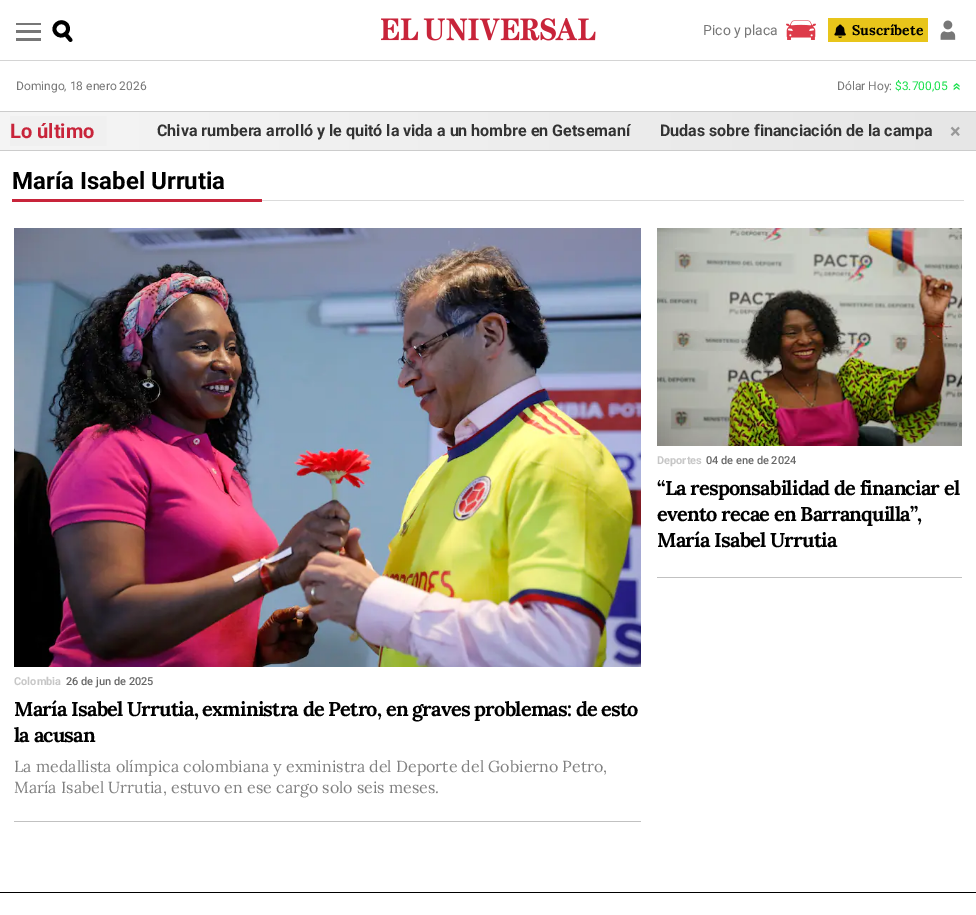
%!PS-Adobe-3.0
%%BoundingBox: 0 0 976 915
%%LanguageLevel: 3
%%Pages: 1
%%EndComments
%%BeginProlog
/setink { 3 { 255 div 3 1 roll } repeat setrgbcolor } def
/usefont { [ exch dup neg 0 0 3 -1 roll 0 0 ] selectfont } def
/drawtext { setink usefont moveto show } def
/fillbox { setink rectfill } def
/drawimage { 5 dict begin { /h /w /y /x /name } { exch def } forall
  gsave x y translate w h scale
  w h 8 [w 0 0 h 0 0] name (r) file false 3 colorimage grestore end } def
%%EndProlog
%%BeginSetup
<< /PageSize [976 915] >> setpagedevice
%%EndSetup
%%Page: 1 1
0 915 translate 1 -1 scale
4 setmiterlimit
0 0 976 915 255 255 255 fillbox
0 60 976 1 212 212 212 fillbox
16 23 25 2 119 119 119 fillbox
16 30 25 3 119 119 119 fillbox
16 38 25 3 119 119 119 fillbox
0 0 0 setink
3.8 setlinewidth
66.5 24.5 moveto 72 31.5 61.5 40 56 33 curveto 50.5 26.5 60.5 18 66.5 24.5 curveto closepath stroke
1 setlinecap
65.5 34 moveto 70.5 40 lineto stroke
(assets/img1.rgb) 381 18 215 23 drawimage
(Pico y placa) 703 35 /Roboto-Regular 14 119 119 119 drawtext
(assets/img2.rgb) 786 20 30 20 drawimage
828 18 100 24 232 197 26 fillbox
(assets/img3.rgb) 834 24 12 14 drawimage
(Suscríbete) 852 35 /Lora-Bold 14 0 0 0 drawtext
(assets/img4.rgb) 940 20 16 20 drawimage
(Domingo, 18 enero 2026) 16 90 /Roboto-Regular 12 119 119 119 drawtext
(Dólar Hoy:) 837 90 /Roboto-Regular 12 119 119 119 drawtext
($3.700,05) 895 90 /Roboto-Regular 12 23 224 75 drawtext
(assets/img5.rgb) 953 83 7 8 drawimage
gsave 0 112 moveto 976 112 lineto 976 150 lineto 0 150 lineto closepath clip newpath
<< /ShadingType 2 /ColorSpace /DeviceRGB /Coords [0 131 976 131] /Extend [true true] /Function << /FunctionType 2 /Domain [0 1] /C0 [0.961 0.961 0.961] /C1 [0.902 0.902 0.902] /N 1 >> >> shfill grestore
0 111 976 1 204 204 204 fillbox
0 150 976 1 204 204 204 fillbox
gsave 10 116 moveto 107 116 lineto 107 146 lineto 10 146 lineto closepath clip newpath
<< /ShadingType 2 /ColorSpace /DeviceRGB /Coords [-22 131 134 131] /Extend [true true] /Function << /FunctionType 3 /Domain [0 1] /Functions [<< /FunctionType 2 /Domain [0 1] /C0 [0.941 0.941 0.941] /C1 [0.941 0.941 0.941] /N 1 >> << /FunctionType 2 /Domain [0 1] /C0 [0.941 0.941 0.941] /C1 [0.957 0.957 0.957] /N 1 >>] /Bounds [0.8] /Encode [0 1 0 1] >> >> shfill grestore
(Lo último) 10 138 /Roboto-Bold 20 200 36 58 drawtext
(Chiva rumbera arrolló y le quitó la vida a un hombre en Getsemaní) 157 136 /Roboto-Bold 16 51 51 51 drawtext
(Dudas sobre financiación de la campa) 660 136 /Roboto-Bold 16 51 51 51 drawtext
(×) 950 138 /Roboto-Bold 20 153 153 153 drawtext
(María Isabel Urrutia) 12 189 /Roboto-Bold 24 0 0 0 drawtext
12 199 250 3 200 36 58 fillbox
262 200 702 1 219 219 219 fillbox
0 892 976 1 0 0 0 fillbox
657 577 305 1 193 193 193 fillbox
(assets/img6.rgb) 657 228 305 218 drawimage
(Deportes) 657 464 /Roboto-Bold 11 199 199 199 drawtext
(04 de ene de 2024) 706 464 /Roboto-Medium 11 102 102 102 drawtext
/Lora-Bold 20 usefont
0 0 0 setink
657 495 moveto -0.8 0 (“La responsabilidad de financiar el) ashow
657 521 moveto -0.8 0 (evento recae en Barranquilla”,) ashow
657 547 moveto -0.8 0 (María Isabel Urrutia) ashow
14 821 627 1 193 193 193 fillbox
(assets/img7.rgb) 14 228 627 439 drawimage
(Colombia) 14 685 /Roboto-Bold 11 199 199 199 drawtext
(26 de jun de 2025) 66 685 /Roboto-Medium 11 102 102 102 drawtext
/Lora-Bold 20 usefont
0 0 0 setink
14 716 moveto -0.8 0 (María Isabel Urrutia, exministra de Petro, en graves problemas: de esto) ashow
14 742 moveto -0.8 0 (la acusan) ashow
(La medallista olímpica colombiana y exministra del Deporte del Gobierno Petro,) 14 772 /Lora-Regular 16 128 128 128 drawtext
(María Isabel Urrutia, estuvo en ese cargo solo seis meses.) 14 793 /Lora-Regular 16 128 128 128 drawtext
showpage
%%EOF
